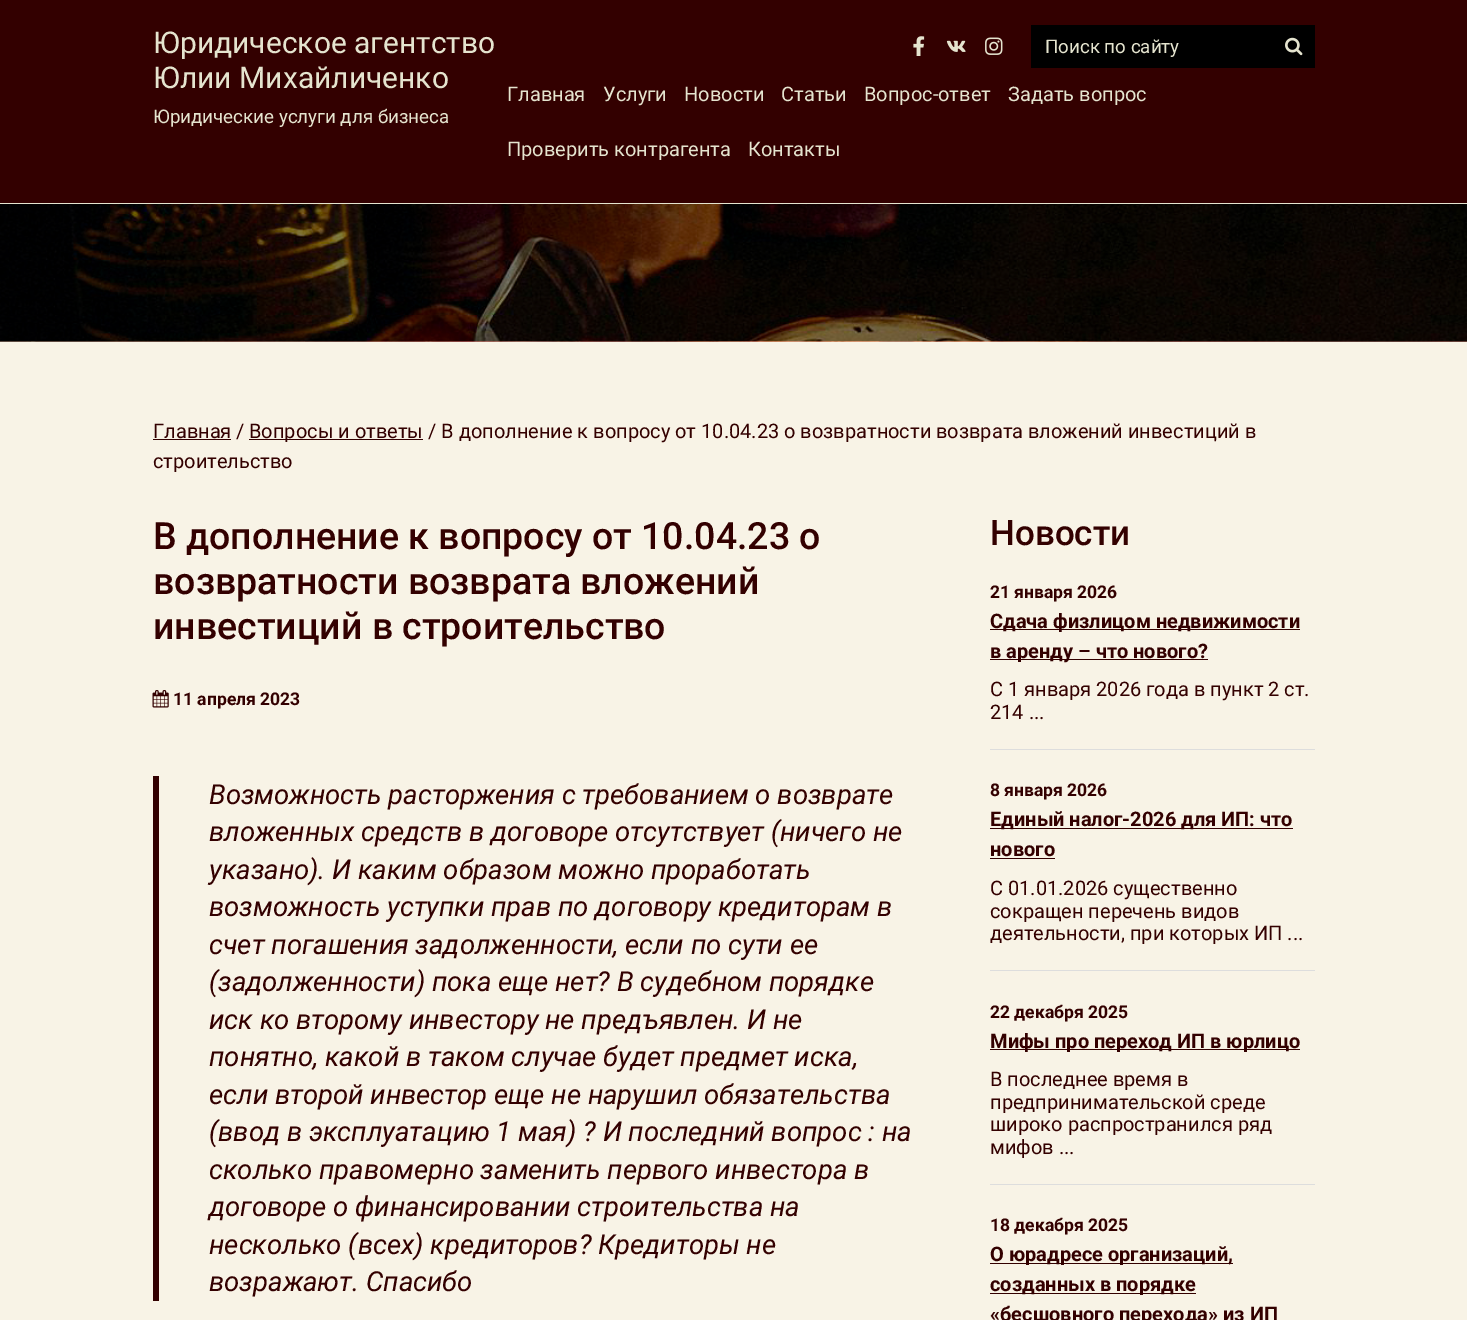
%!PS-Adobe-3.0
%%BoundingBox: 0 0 1467 1320
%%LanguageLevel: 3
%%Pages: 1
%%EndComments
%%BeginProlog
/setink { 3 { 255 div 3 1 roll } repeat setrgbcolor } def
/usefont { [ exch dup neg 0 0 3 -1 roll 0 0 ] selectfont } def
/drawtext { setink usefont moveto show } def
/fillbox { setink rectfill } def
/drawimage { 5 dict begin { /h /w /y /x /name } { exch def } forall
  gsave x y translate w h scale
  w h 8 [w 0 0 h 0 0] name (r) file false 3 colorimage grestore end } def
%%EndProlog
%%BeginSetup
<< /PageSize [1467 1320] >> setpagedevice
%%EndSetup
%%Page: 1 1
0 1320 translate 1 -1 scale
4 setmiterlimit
0 0 1467 1320 248 243 230 fillbox
0 0 1467 203 51 0 0 fillbox
(Юридическое агентство) 153 53 /Roboto-Regular 30 229 228 207 drawtext
(Юлии Михайличенко) 153 88 /Roboto-Regular 30 229 228 207 drawtext
(Юридические услуги для бизнеса) 153 123 /Roboto-Regular 18.75 229 228 207 drawtext
(assets/img1.rgb) 913 36 12 20 drawimage
(assets/img2.rgb) 946 40 20 12 drawimage
(assets/img3.rgb) 985 37 18 18 drawimage
1031 25 284 43 0 0 0 fillbox
(Поиск по сайту) 1045 53 /Roboto-Regular 18.75 229 228 207 drawtext
(assets/img4.rgb) 1285 37 18 19 drawimage
(Главная) 507 101 /Roboto-Regular 20 229 228 207 drawtext
(Услуги) 603 101 /Roboto-Regular 20 229 228 207 drawtext
(Новости) 684 101 /Roboto-Regular 20 229 228 207 drawtext
(Статьи) 781 101 /Roboto-Regular 20 229 228 207 drawtext
(Вопрос-ответ) 864 101 /Roboto-Regular 20 229 228 207 drawtext
(Задать вопрос) 1008 101 /Roboto-Regular 20 229 228 207 drawtext
(Проверить контрагента) 507 156 /Roboto-Regular 20 229 228 207 drawtext
(Контакты) 748 156 /Roboto-Regular 20 229 228 207 drawtext
0 203 1467 1 229 228 207 fillbox
(assets/img5.rgb) 0 341 1467 1 drawimage
(assets/img7.rgb) 0 341 1467 1 drawimage
(assets/img8.rgb) 0 341 1467 1 drawimage
(assets/img9.rgb) 0 341 1467 1 drawimage
(assets/img6.rgb) 0 204 1467 138 drawimage
(Главная) 153 438 /Roboto-Regular 20 51 0 0 drawtext
153 439 78 1 51 0 0 fillbox
(/) 236 438 /Roboto-Regular 20 51 0 0 drawtext
249 439 174 1 51 0 0 fillbox
(Вопросы и ответы) 249 438 /Roboto-Regular 20 51 0 0 drawtext
(/ В дополнение к вопросу от 10.04.23 о возвратности возврата вложений инвестиций в) 428 438 /Roboto-Regular 20 51 0 0 drawtext
(строительство) 153 468 /Roboto-Regular 20 51 0 0 drawtext
(В дополнение к вопросу от 10.04.23 о) 153 549 /Roboto-Medium 37.5 51 0 0 drawtext
(возвратности возврата вложений) 153 594 /Roboto-Medium 37.5 51 0 0 drawtext
(инвестиций в строительство) 153 639 /Roboto-Medium 37.5 51 0 0 drawtext
(assets/img10.rgb) 152 690 17 18 drawimage
(11 апреля 2023) 173 705 /Roboto-Bold 17.5 51 0 0 drawtext
153 776 6 525 51 0 0 fillbox
(Возможность расторжения с требованием о возврате) 209 804 /Roboto-Italic 27.5 51 0 0 drawtext
(вложенных средств в договоре отсутствует \(ничего не) 209 841 /Roboto-Italic 27.5 51 0 0 drawtext
(указано\). И каким образом можно проработать) 209 879 /Roboto-Italic 27.5 51 0 0 drawtext
(возможность уступки прав по договору кредиторам в) 209 916 /Roboto-Italic 27.5 51 0 0 drawtext
(счет погашения задолженности, если по сути ее) 209 954 /Roboto-Italic 27.5 51 0 0 drawtext
(\(задолженности\) пока еще нет? В судебном порядке) 209 991 /Roboto-Italic 27.5 51 0 0 drawtext
(иск ко второму инвестору не предъявлен. И не) 209 1029 /Roboto-Italic 27.5 51 0 0 drawtext
(понятно, какой в таком случае будет предмет иска,) 209 1066 /Roboto-Italic 27.5 51 0 0 drawtext
(если второй инвестор еще не нарушил обязательства) 209 1104 /Roboto-Italic 27.5 51 0 0 drawtext
(\(ввод в эксплуатацию 1 мая\) ? И последний вопрос : на) 209 1141 /Roboto-Italic 27.5 51 0 0 drawtext
(сколько правомерно заменить первого инвестора в) 209 1179 /Roboto-Italic 27.5 51 0 0 drawtext
(договоре о финансировании строительства на) 209 1216 /Roboto-Italic 27.5 51 0 0 drawtext
(несколько \(всех\) кредиторов? Кредиторы не) 209 1254 /Roboto-Italic 27.5 51 0 0 drawtext
(возражают. Спасибо) 209 1291 /Roboto-Italic 27.5 51 0 0 drawtext
(Новости) 990 545 /Roboto-Medium 35 51 0 0 drawtext
990 749 325 1 221 221 221 fillbox
(21 января 2026) 990 598 /Roboto-Bold 17.5 51 0 0 drawtext
990 629 310 1 51 0 0 fillbox
(Сдача физлицом недвижимости) 990 628 /Roboto-Bold 20 51 0 0 drawtext
990 659 218 1 51 0 0 fillbox
(в аренду – что нового?) 990 658 /Roboto-Bold 20 51 0 0 drawtext
(С 1 января 2026 года в пункт 2 ст.) 990 696 /Roboto-Regular 20 51 0 0 drawtext
(214 ...) 990 719 /Roboto-Regular 20 51 0 0 drawtext
990 970 325 1 221 221 221 fillbox
(8 января 2026) 990 796 /Roboto-Bold 17.5 51 0 0 drawtext
990 828 303 1 51 0 0 fillbox
(Единый налог-2026 для ИП: что) 990 826 /Roboto-Bold 20 51 0 0 drawtext
(нового) 990 856 /Roboto-Bold 20 51 0 0 drawtext
990 858 65 1 51 0 0 fillbox
(С 01.01.2026 существенно) 990 895 /Roboto-Regular 20 51 0 0 drawtext
(сокращен перечень видов) 990 918 /Roboto-Regular 20 51 0 0 drawtext
(деятельности, при которых ИП ...) 990 940 /Roboto-Regular 20 51 0 0 drawtext
990 1184 325 1 221 221 221 fillbox
(22 декабря 2025) 990 1018 /Roboto-Bold 17.5 51 0 0 drawtext
990 1049 310 1 51 0 0 fillbox
(Мифы про переход ИП в юрлицо) 990 1048 /Roboto-Bold 20 51 0 0 drawtext
(В последнее время в) 990 1086 /Roboto-Regular 20 51 0 0 drawtext
(предпринимательской среде) 990 1109 /Roboto-Regular 20 51 0 0 drawtext
(широко распространился ряд) 990 1131 /Roboto-Regular 20 51 0 0 drawtext
(мифов ...) 990 1154 /Roboto-Regular 20 51 0 0 drawtext
(18 декабря 2025) 990 1231 /Roboto-Bold 17.5 51 0 0 drawtext
990 1263 243 1 51 0 0 fillbox
(О юрадресе организаций,) 990 1261 /Roboto-Bold 20 51 0 0 drawtext
990 1293 206 1 51 0 0 fillbox
(созданных в порядке) 990 1291 /Roboto-Bold 20 51 0 0 drawtext
(«бесшовного перехода» из ИП) 990 1321 /Roboto-Bold 20 51 0 0 drawtext
showpage
%%EOF
